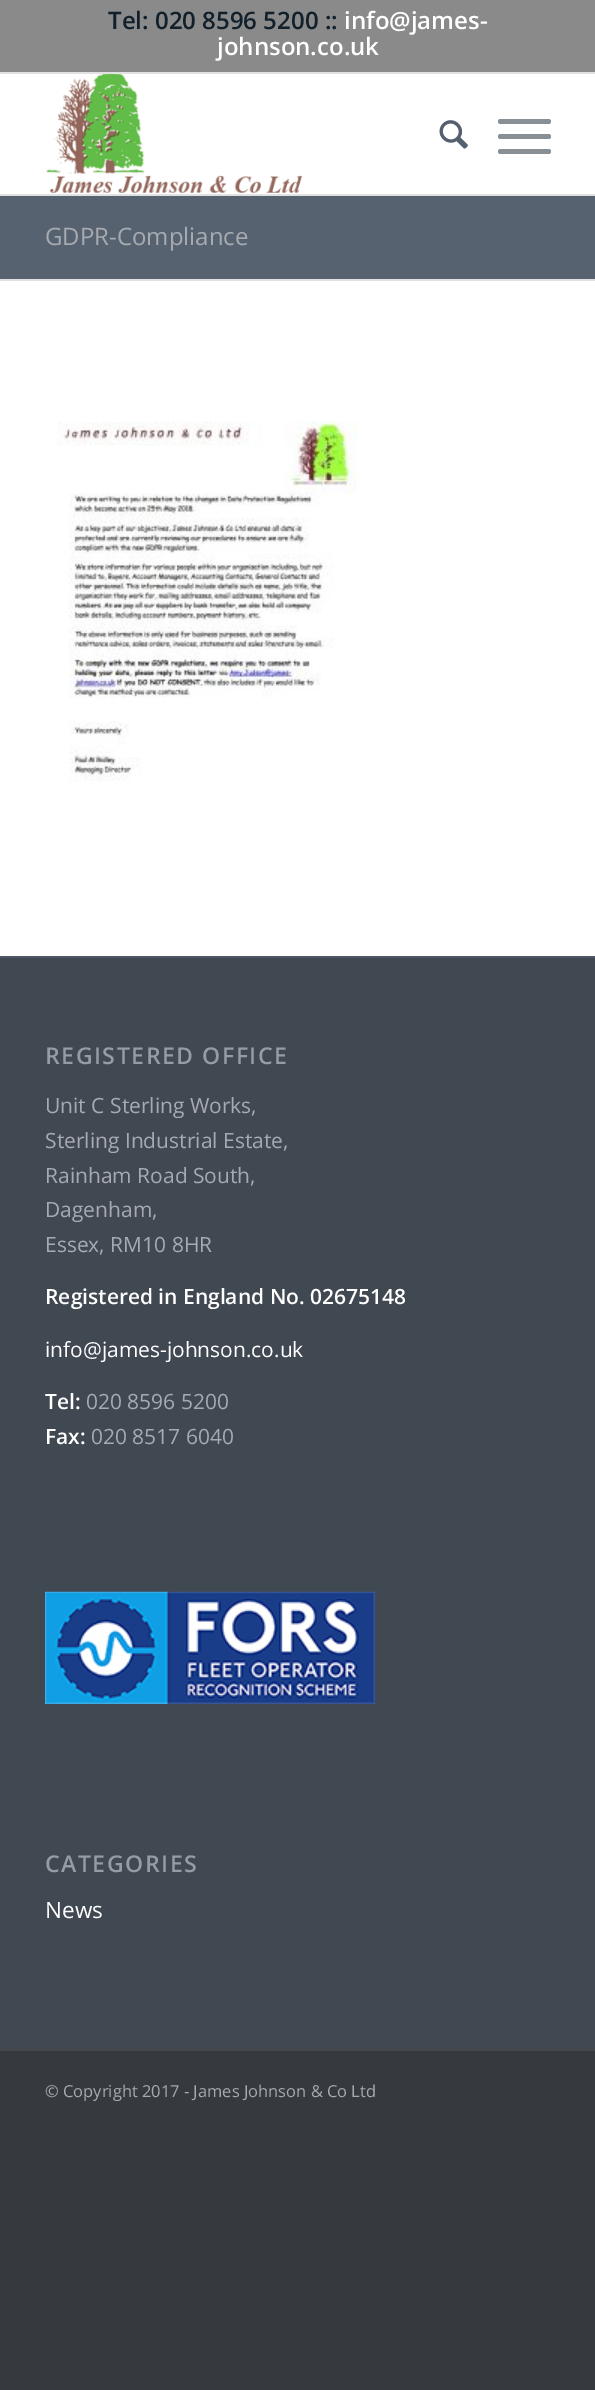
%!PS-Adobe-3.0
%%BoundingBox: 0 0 595 2390
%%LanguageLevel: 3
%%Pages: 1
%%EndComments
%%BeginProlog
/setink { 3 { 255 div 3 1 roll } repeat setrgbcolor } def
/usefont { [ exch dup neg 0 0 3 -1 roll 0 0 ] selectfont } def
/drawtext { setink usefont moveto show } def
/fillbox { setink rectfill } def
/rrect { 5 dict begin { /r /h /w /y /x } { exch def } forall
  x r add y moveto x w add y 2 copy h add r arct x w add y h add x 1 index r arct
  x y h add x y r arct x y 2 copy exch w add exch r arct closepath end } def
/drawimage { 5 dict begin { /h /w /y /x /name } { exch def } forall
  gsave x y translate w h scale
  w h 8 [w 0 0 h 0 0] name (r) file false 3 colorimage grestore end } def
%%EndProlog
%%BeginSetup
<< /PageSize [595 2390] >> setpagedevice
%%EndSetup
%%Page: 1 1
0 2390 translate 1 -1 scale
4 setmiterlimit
0 0 595 2390 54 57 61 fillbox
0 74 595 882 255 255 255 fillbox
0 0 595 72 138 138 138 fillbox
0 72 595 2 225 225 225 fillbox
(Tel: 020 8596 5200 ::) 108 29 /OpenSans-SemiBold 24 17 32 42 drawtext
(info@james-) 344 29 /OpenSans-SemiBold 24 255 255 255 drawtext
(johnson.co.uk) 217 55 /OpenSans-SemiBold 24 255 255 255 drawtext
0 194 595 2 225 225 225 fillbox
(assets/img1.rgb) 46 74 257 119 drawimage
(assets/img2.rgb) 439 120 29 29 drawimage
136 144 149 setink
498 134 53 5 2.5 rrect fill
498 119 53 5 2.5 rrect fill
498 149 53 5 2.5 rrect fill
0 196 595 83 87 98 112 fillbox
(GDPR-Compliance) 45 245 /OpenSans-Regular 24 167 171 177 drawtext
0 279 595 2 225 225 225 fillbox
(assets/img3.rgb) 57 421 301 361 drawimage
0 958 595 1091 64 72 82 fillbox
0 956 595 2 78 87 99 fillbox
/OpenSans-SemiBold 23.1 usefont
150 156 164 setink
45 1064 moveto 1.5 0 (REGISTERED OFFICE) ashow
(Unit C Sterling Works,) 45 1113 /OpenSans-Regular 21 167 171 177 drawtext
(Sterling Industrial Estate,) 45 1148 /OpenSans-Regular 21 167 171 177 drawtext
(Rainham Road South,) 45 1183 /OpenSans-Regular 21 167 171 177 drawtext
(Dagenham,) 45 1217 /OpenSans-Regular 21 167 171 177 drawtext
(Essex, RM10 8HR) 45 1252 /OpenSans-Regular 21 167 171 177 drawtext
(Registered in England No. 02675148) 45 1304 /OpenSans-SemiBold 21 255 255 255 drawtext
(info@james-johnson.co.uk) 45 1357 /OpenSans-Regular 21 255 255 255 drawtext
(Tel:) 45 1409 /OpenSans-SemiBold 21 255 255 255 drawtext
(020 8596 5200) 86 1409 /OpenSans-Regular 21 167 171 177 drawtext
(Fax:) 45 1444 /OpenSans-SemiBold 21 255 255 255 drawtext
(020 8517 6040) 91 1444 /OpenSans-Regular 21 167 171 177 drawtext
(assets/img4.rgb) 45 1591 330 113 drawimage
/OpenSans-SemiBold 23.1 usefont
150 156 164 setink
45 1872 moveto 1.5 0 (CATEGORIES) ashow
(News) 45 1918 /OpenSans-Regular 22.5 255 255 255 drawtext
0 2049 595 2 69 73 77 fillbox
(© Copyright 2017 - James Johnson & Co Ltd) 45 2097 /OpenSans-Regular 16.5 167 171 177 drawtext
showpage
%%EOF
